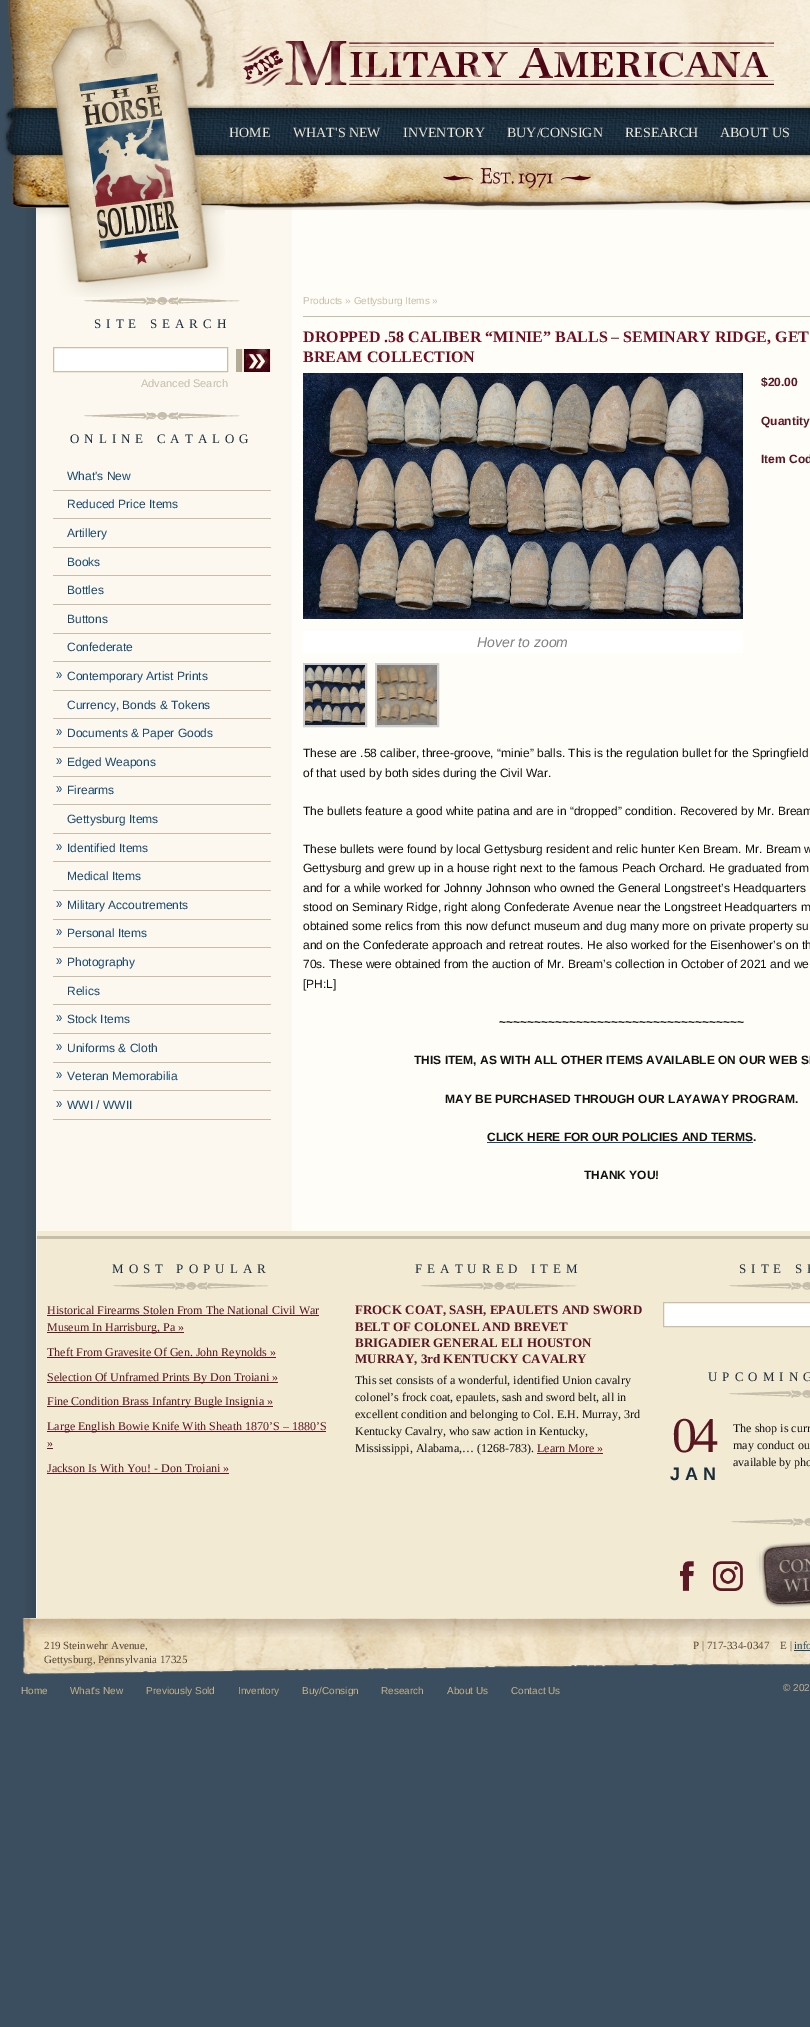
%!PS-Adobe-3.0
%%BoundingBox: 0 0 810 2027
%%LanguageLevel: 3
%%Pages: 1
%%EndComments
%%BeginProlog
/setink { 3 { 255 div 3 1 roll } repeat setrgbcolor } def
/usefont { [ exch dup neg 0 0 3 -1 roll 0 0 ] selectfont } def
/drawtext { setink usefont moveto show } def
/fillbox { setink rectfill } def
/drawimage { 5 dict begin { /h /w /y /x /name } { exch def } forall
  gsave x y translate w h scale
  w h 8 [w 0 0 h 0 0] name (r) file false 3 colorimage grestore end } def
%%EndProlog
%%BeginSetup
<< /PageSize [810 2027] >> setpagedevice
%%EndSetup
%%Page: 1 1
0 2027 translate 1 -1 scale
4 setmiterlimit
0 0 810 2027 58 78 95 fillbox
(assets/img1.rgb) 26 202 784 1416 drawimage
(assets/img2.rgb) 3 0 807 210 drawimage
(HOME) 229 137 /LiberationSerif-Regular 14 238 231 215 drawtext
(WHAT'S NEW) 293 137 /LiberationSerif-Regular 14 238 231 215 drawtext
(INVENTORY) 403 137 /LiberationSerif-Regular 14 238 231 215 drawtext
(BUY/CONSIGN) 507 137 /LiberationSerif-Regular 14 238 231 215 drawtext
(RESEARCH) 625 137 /LiberationSerif-Regular 14 238 231 215 drawtext
(ABOUT US) 720 137 /LiberationSerif-Regular 14 238 231 215 drawtext
(assets/img3.rgb) 36 210 189 87 drawimage
(assets/img4.rgb) 84 297 156 8 drawimage
/LiberationSerif-Regular 13 usefont
26 44 58 setink
94 328 moveto 5 0 (SITE SEARCH) ashow
255 255 255 setink
53.5 347.5 moveto 227.5 347.5 lineto 227.5 371.5 lineto 53.5 371.5 lineto closepath gsave fill grestore
201 191 169 setink
stroke
(assets/img5.rgb) 236 349 35 23 drawimage
(Advanced Search) 141 387 /LiberationSans-Regular 11 198 190 171 drawtext
(assets/img4.rgb) 84 412 156 8 drawimage
/LiberationSerif-Regular 13 usefont
26 44 58 setink
70 443 moveto 5 0 (ONLINE CATALOG) ashow
53 490 218 1 198 190 171 fillbox
(What's New) 67 480 /LiberationSans-Regular 12 24 72 110 drawtext
53 518 218 1 198 190 171 fillbox
(Reduced Price Items) 67 508 /LiberationSans-Regular 12 24 72 110 drawtext
53 547 218 1 198 190 171 fillbox
(Artillery) 67 537 /LiberationSans-Regular 12 24 72 110 drawtext
53 575 218 1 198 190 171 fillbox
(Books) 67 566 /LiberationSans-Regular 12 24 72 110 drawtext
53 604 218 1 198 190 171 fillbox
(Bottles) 67 594 /LiberationSans-Regular 12 24 72 110 drawtext
53 633 218 1 198 190 171 fillbox
(Buttons) 67 623 /LiberationSans-Regular 12 24 72 110 drawtext
53 661 218 1 198 190 171 fillbox
(Confederate) 67 651 /LiberationSans-Regular 12 24 72 110 drawtext
53 690 218 1 198 190 171 fillbox
(assets/img6.rgb) 56 672 6 6 drawimage
(Contemporary Artist Prints) 67 680 /LiberationSans-Regular 12 24 72 110 drawtext
53 718 218 1 198 190 171 fillbox
(Currency, Bonds & Tokens) 67 709 /LiberationSans-Regular 12 24 72 110 drawtext
53 747 218 1 198 190 171 fillbox
(assets/img6.rgb) 56 729 6 6 drawimage
(Documents & Paper Goods) 67 737 /LiberationSans-Regular 12 24 72 110 drawtext
53 776 218 1 198 190 171 fillbox
(assets/img6.rgb) 56 758 6 6 drawimage
(Edged Weapons) 67 766 /LiberationSans-Regular 12 24 72 110 drawtext
53 804 218 1 198 190 171 fillbox
(assets/img6.rgb) 56 786 6 6 drawimage
(Firearms) 67 794 /LiberationSans-Regular 12 24 72 110 drawtext
53 833 218 1 198 190 171 fillbox
(Gettysburg Items) 67 823 /LiberationSans-Regular 12 24 72 110 drawtext
53 861 218 1 198 190 171 fillbox
(assets/img6.rgb) 56 844 6 6 drawimage
(Identified Items) 67 852 /LiberationSans-Regular 12 24 72 110 drawtext
53 890 218 1 198 190 171 fillbox
(Medical Items) 67 880 /LiberationSans-Regular 12 24 72 110 drawtext
53 919 218 1 198 190 171 fillbox
(assets/img6.rgb) 56 901 6 6 drawimage
(Military Accoutrements) 67 909 /LiberationSans-Regular 12 24 72 110 drawtext
53 947 218 1 198 190 171 fillbox
(assets/img6.rgb) 56 929 6 6 drawimage
(Personal Items) 67 937 /LiberationSans-Regular 12 24 72 110 drawtext
53 976 218 1 198 190 171 fillbox
(assets/img6.rgb) 56 958 6 6 drawimage
(Photography) 67 966 /LiberationSans-Regular 12 24 72 110 drawtext
53 1004 218 1 198 190 171 fillbox
(Relics) 67 995 /LiberationSans-Regular 12 24 72 110 drawtext
53 1033 218 1 198 190 171 fillbox
(assets/img6.rgb) 56 1015 6 6 drawimage
(Stock Items) 67 1023 /LiberationSans-Regular 12 24 72 110 drawtext
53 1062 218 1 198 190 171 fillbox
(assets/img6.rgb) 56 1044 6 6 drawimage
(Uniforms & Cloth) 67 1052 /LiberationSans-Regular 12 24 72 110 drawtext
53 1090 218 1 198 190 171 fillbox
(assets/img6.rgb) 56 1072 6 6 drawimage
(Veteran Memorabilia) 67 1080 /LiberationSans-Regular 12 24 72 110 drawtext
53 1119 218 1 198 190 171 fillbox
(assets/img6.rgb) 56 1101 6 6 drawimage
(WWI / WWII) 67 1109 /LiberationSans-Regular 12 24 72 110 drawtext
303 316 507 1 198 190 171 fillbox
(Products » Gettysburg Items ») 303 304 /LiberationSans-Regular 10 198 190 171 drawtext
(DROPPED .58 CALIBER “MINIE” BALLS – SEMINARY RIDGE, GET) 303 342 /LiberationSerif-Bold 16 111 15 33 drawtext
(BREAM COLLECTION) 303 362 /LiberationSerif-Bold 16 111 15 33 drawtext
($20.00) 761 386 /LiberationSans-Bold 12 89 23 34 drawtext
(Quantity) 761 425 /LiberationSans-Bold 12 89 23 34 drawtext
(Item Cod) 761 463 /LiberationSans-Bold 12 89 23 34 drawtext
(assets/img7.rgb) 303 373 440 246 drawimage
303 631 440 22 255 255 255 fillbox
(Hover to zoom) 477 647 /LiberationSans-Italic 14 128 128 128 drawtext
204 204 204 setink
2 setlinewidth
304 664 62 62 rectstroke
376 664 62 62 rectstroke
(assets/img8.rgb) 305 665 60 60 drawimage
(assets/img9.rgb) 377 665 60 60 drawimage
(These are .58 caliber, three-groove, “minie” balls. This is the regulation bullet for the Springfield) 303 757 /LiberationSans-Regular 12 17 17 17 drawtext
(of that used by both sides during the Civil War.) 303 777 /LiberationSans-Regular 12 17 17 17 drawtext
(The bullets feature a good white patina and are in “dropped” condition. Recovered by Mr. Bream) 303 815 /LiberationSans-Regular 12 17 17 17 drawtext
(These bullets were found by local Gettysburg resident and relic hunter Ken Bream. Mr. Bream w) 303 853 /LiberationSans-Regular 12 17 17 17 drawtext
(Gettysburg and grew up in a house right next to the famous Peach Orchard. He graduated from) 303 872 /LiberationSans-Regular 12 17 17 17 drawtext
(and for a while worked for Johnny Johnson who owned the General Longstreet’s Headquarters) 303 892 /LiberationSans-Regular 12 17 17 17 drawtext
(stood on Seminary Ridge, right along Confederate Avenue near the Longstreet Headquarters m) 303 911 /LiberationSans-Regular 12 17 17 17 drawtext
(obtained some relics from this now defunct museum and dug many more on private property su) 303 930 /LiberationSans-Regular 12 17 17 17 drawtext
(and on the Confederate approach and retreat routes. He also worked for the Eisenhower’s on th) 303 949 /LiberationSans-Regular 12 17 17 17 drawtext
(70s. These were obtained from the auction of Mr. Bream’s collection in October of 2021 and we) 303 968 /LiberationSans-Regular 12 17 17 17 drawtext
([PH:L]) 303 988 /LiberationSans-Regular 12 17 17 17 drawtext
(~~~~~~~~~~~~~~~~~~~~~~~~~~~~~~~~~~~) 499 1026 /LiberationSans-Bold 12 17 17 17 drawtext
(THIS ITEM, AS WITH ALL OTHER ITEMS AVAILABLE ON OUR WEB SI) 414 1064 /LiberationSans-Bold 12 17 17 17 drawtext
(MAY BE PURCHASED THROUGH OUR LAYAWAY PROGRAM.) 445 1103 /LiberationSans-Bold 12 17 17 17 drawtext
(CLICK HERE FOR OUR POLICIES AND TERMS.) 487 1141 /LiberationSans-Bold 12 17 17 17 drawtext
487 1142 266 1 24 72 110 fillbox
(THANK YOU!) 584 1179 /LiberationSans-Bold 12 17 17 17 drawtext
37 1231 773 387 243 234 212 fillbox
37 1236 773 3 198 190 171 fillbox
(assets/img10.rgb) 113 1282 156 8 drawimage
/LiberationSerif-Regular 13 usefont
26 44 58 setink
112 1273 moveto 5 0 (MOST POPULAR) ashow
(Historical Firearms Stolen From The National Civil War) 47 1314 /LiberationSerif-Regular 12 89 23 34 drawtext
47 1315 272 1 92 27 37 fillbox
47 1332 137 1 92 27 37 fillbox
(Museum In Harrisburg, Pa ») 47 1331 /LiberationSerif-Regular 12 89 23 34 drawtext
47 1357 229 1 92 27 37 fillbox
(Theft From Gravesite Of Gen. John Reynolds ») 47 1356 /LiberationSerif-Regular 12 89 23 34 drawtext
47 1382 231 1 92 27 37 fillbox
(Selection Of Unframed Prints By Don Troiani ») 47 1381 /LiberationSerif-Regular 12 89 23 34 drawtext
47 1406 226 1 92 27 37 fillbox
(Fine Condition Brass Infantry Bugle Insignia ») 47 1405 /LiberationSerif-Regular 12 89 23 34 drawtext
47 1431 279 1 92 27 37 fillbox
(Large English Bowie Knife With Sheath 1870’S – 1880’S) 47 1430 /LiberationSerif-Regular 12 89 23 34 drawtext
(») 47 1447 /LiberationSerif-Regular 12 89 23 34 drawtext
47 1448 6 1 92 27 37 fillbox
(Jackson Is With You! - Don Troiani ») 47 1472 /LiberationSerif-Regular 12 89 23 34 drawtext
47 1473 182 1 92 27 37 fillbox
(assets/img10.rgb) 421 1282 156 8 drawimage
/LiberationSerif-Regular 13 usefont
26 44 58 setink
415 1273 moveto 5 0 (FEATURED ITEM) ashow
(FROCK COAT, SASH, EPAULETS AND SWORD) 355 1314 /LiberationSerif-Bold 13 89 23 34 drawtext
(BELT OF COLONEL AND BREVET) 355 1331 /LiberationSerif-Bold 13 89 23 34 drawtext
(BRIGADIER GENERAL ELI HOUSTON) 355 1347 /LiberationSerif-Bold 13 89 23 34 drawtext
(MURRAY, 3rd KENTUCKY CAVALRY) 355 1363 /LiberationSerif-Bold 13 89 23 34 drawtext
(This set consists of a wonderful, identified Union cavalry) 355 1384 /LiberationSerif-Regular 12 17 17 17 drawtext
(colonel’s frock coat, epaulets, sash and sword belt, all in) 355 1401 /LiberationSerif-Regular 12 17 17 17 drawtext
(excellent condition and belonging to Col. E.H. Murray, 3rd) 355 1418 /LiberationSerif-Regular 12 17 17 17 drawtext
(Kentucky Cavalry, who saw action in Kentucky,) 355 1435 /LiberationSerif-Regular 12 17 17 17 drawtext
(Mississippi, Alabama,… \(1268-783\).) 355 1452 /LiberationSerif-Regular 12 17 17 17 drawtext
(Learn More ») 537 1452 /LiberationSerif-Regular 12 89 23 34 drawtext
537 1453 66 1 92 27 37 fillbox
(assets/img11.rgb) 729 1282 81 8 drawimage
/LiberationSerif-Regular 13 usefont
26 44 58 setink
739 1273 moveto 5 0 (SITE SE) ashow
255 255 255 setink
663.5 1302.5 moveto 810.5 1302.5 lineto 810.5 1326.5 lineto 663.5 1326.5 lineto closepath gsave fill grestore
201 191 169 setink
1 setlinewidth
stroke
(assets/img11.rgb) 729 1390 81 8 drawimage
26 44 58 setink
708 1381 moveto 5 0 (UPCOMING) ashow
/LiberationSerif-Regular 50 usefont
89 23 34 setink
672 1452 moveto -4 0 (04) ashow
/LiberationSans-Bold 18 usefont
26 44 58 setink
670 1480 moveto 5 0 (JAN) ashow
(The shop is curr) 733 1432 /LiberationSerif-Regular 12 17 17 17 drawtext
(may conduct ou) 733 1449 /LiberationSerif-Regular 12 17 17 17 drawtext
(available by pho) 733 1466 /LiberationSerif-Regular 12 17 17 17 drawtext
(assets/img12.rgb) 731 1518 79 90 drawimage
(assets/img13.rgb) 680 1561 14 30 drawimage
(assets/img14.rgb) 713 1561 30 30 drawimage
(assets/img15.rgb) 22 1618 788 57 drawimage
(assets/img16.rgb) 23 1619 787 18 drawimage
(219 Steinwehr Avenue,) 44 1649 /LiberationSerif-Regular 11 86 70 53 drawtext
(Gettysburg, Pennsylvania 17325) 44 1663 /LiberationSerif-Regular 11 86 70 53 drawtext
(P | 717-334-0347    E |) 693 1649 /LiberationSerif-Regular 11 86 70 53 drawtext
(info) 794 1649 /LiberationSerif-Regular 11 24 72 110 drawtext
794 1650 16 1 24 72 110 fillbox
(Home) 21 1694 /LiberationSans-Regular 10 200 180 140 drawtext
(What's New) 70 1694 /LiberationSans-Regular 10 200 180 140 drawtext
(Previously Sold) 146 1694 /LiberationSans-Regular 10 200 180 140 drawtext
(Inventory) 238 1694 /LiberationSans-Regular 10 200 180 140 drawtext
(Buy/Consign) 302 1694 /LiberationSans-Regular 10 200 180 140 drawtext
(Research) 381 1694 /LiberationSans-Regular 10 200 180 140 drawtext
(About Us) 447 1694 /LiberationSans-Regular 10 200 180 140 drawtext
(Contact Us) 511 1694 /LiberationSans-Regular 10 200 180 140 drawtext
(© 202) 783 1691 /LiberationSans-Regular 10 200 180 140 drawtext
showpage
%%EOF
